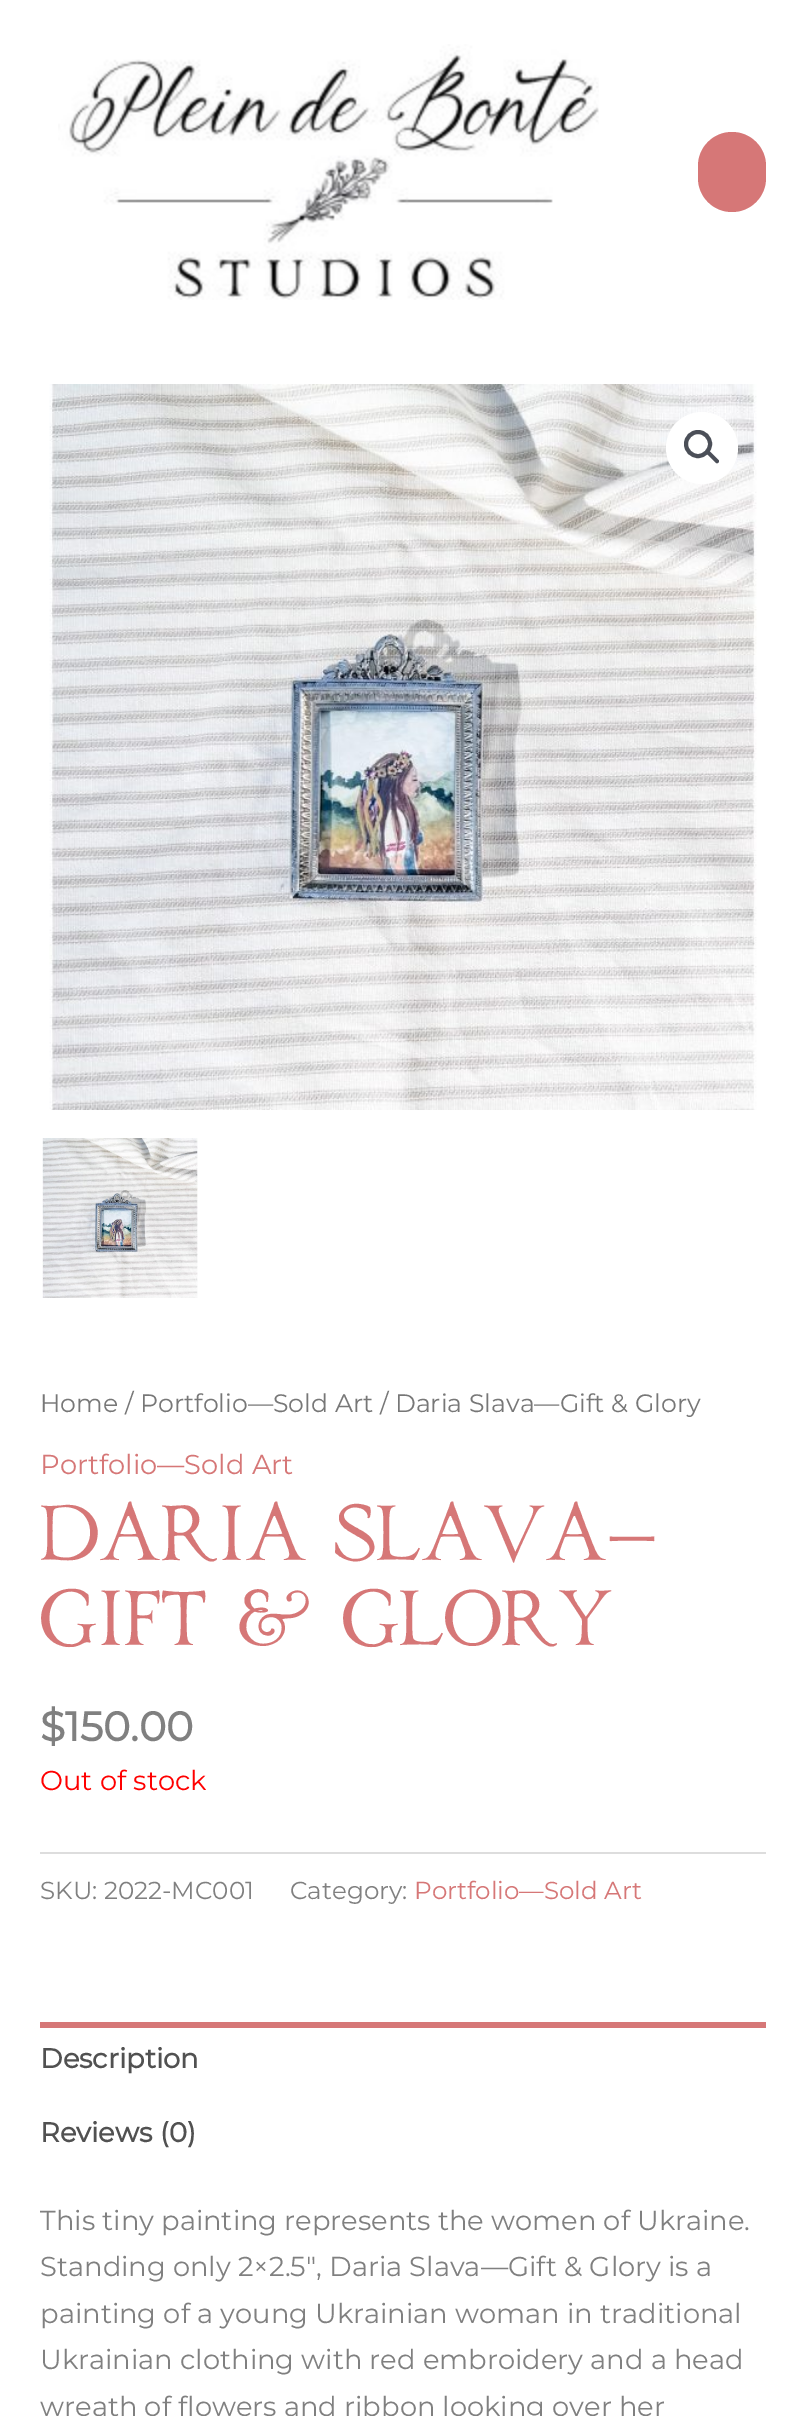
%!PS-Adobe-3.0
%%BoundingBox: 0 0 806 2416
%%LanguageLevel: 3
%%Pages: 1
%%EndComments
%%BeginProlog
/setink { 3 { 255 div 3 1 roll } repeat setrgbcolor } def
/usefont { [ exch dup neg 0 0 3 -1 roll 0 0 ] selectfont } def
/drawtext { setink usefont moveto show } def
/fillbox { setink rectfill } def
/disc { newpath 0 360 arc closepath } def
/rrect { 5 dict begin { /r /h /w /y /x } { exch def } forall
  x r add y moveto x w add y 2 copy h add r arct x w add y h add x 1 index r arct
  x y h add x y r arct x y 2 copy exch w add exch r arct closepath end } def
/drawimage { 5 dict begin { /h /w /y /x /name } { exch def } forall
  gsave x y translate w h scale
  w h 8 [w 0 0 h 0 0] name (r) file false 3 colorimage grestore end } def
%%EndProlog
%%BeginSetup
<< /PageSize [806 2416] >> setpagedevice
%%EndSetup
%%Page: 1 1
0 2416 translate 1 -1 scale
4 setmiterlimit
0 0 806 2416 255 255 255 fillbox
(assets/img1.rgb) 58 44 541 256 drawimage
214 119 119 setink
698 132 68 80 34 rrect fill
(assets/img2.rgb) 49 384 708 726 drawimage
255 255 255 setink
702 448 36 disc fill
75 79 88 setink
4 setlinewidth
698 444 12 disc stroke
707 451.5 moveto 708 450.5 709 450.5 710 451.5 curveto 718.5 460 lineto 719 460.5 719 462 718.5 462.5 curveto 717.5 463.5 716.5 463.5 715.5 462.5 curveto 707 454 lineto 706 453.5 706 452 707 451.5 curveto closepath fill
(assets/img3.rgb) 42 1138 156 160 drawimage
(Home / Portfolio—Sold Art / Daria Slava—Gift & Glory) 40 1412 /Montserrat-Thin 25.2 119 119 119 drawtext
(Portfolio—Sold Art) 40 1474 /Montserrat-Thin 27.35 214 119 119 drawtext
(Daria Slava—) 40 1560 /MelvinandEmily-Regular 54.75 214 119 119 drawtext
(Gift & Glory) 40 1645 /MelvinandEmily-Regular 54.75 214 119 119 drawtext
($150.00) 40 1741 /Montserrat-Bold 41 128 128 128 drawtext
(Out of stock) 40 1790 /Montserrat-Thin 27.35 255 0 0 drawtext
40 1852 726 2 221 221 221 fillbox
(SKU: 2022-MC001) 40 1899 /Montserrat-Thin 24.6 128 128 128 drawtext
(Category:) 290 1899 /Montserrat-Thin 24.6 128 128 128 drawtext
(Portfolio—Sold Art) 414 1899 /Montserrat-Thin 24.6 214 119 119 drawtext
40 2022 726 6 214 119 119 fillbox
(Description) 40 2068 /Montserrat-Bold 27.35 81 81 81 drawtext
(Reviews \(0\)) 40 2142 /Montserrat-Bold 27.35 81 81 81 drawtext
(This tiny painting represents the women of Ukraine.) 40 2230 /Montserrat-Thin 27.35 128 128 128 drawtext
(Standing only 2×2.5″, Daria Slava—Gift & Glory is a) 40 2276 /Montserrat-Thin 27.35 128 128 128 drawtext
(painting of a young Ukrainian woman in traditional) 40 2323 /Montserrat-Thin 27.35 128 128 128 drawtext
(Ukrainian clothing with red embroidery and a head) 40 2369 /Montserrat-Thin 27.35 128 128 128 drawtext
(wreath of flowers and ribbon looking over her) 40 2416 /Montserrat-Thin 27.35 128 128 128 drawtext
showpage
%%EOF
